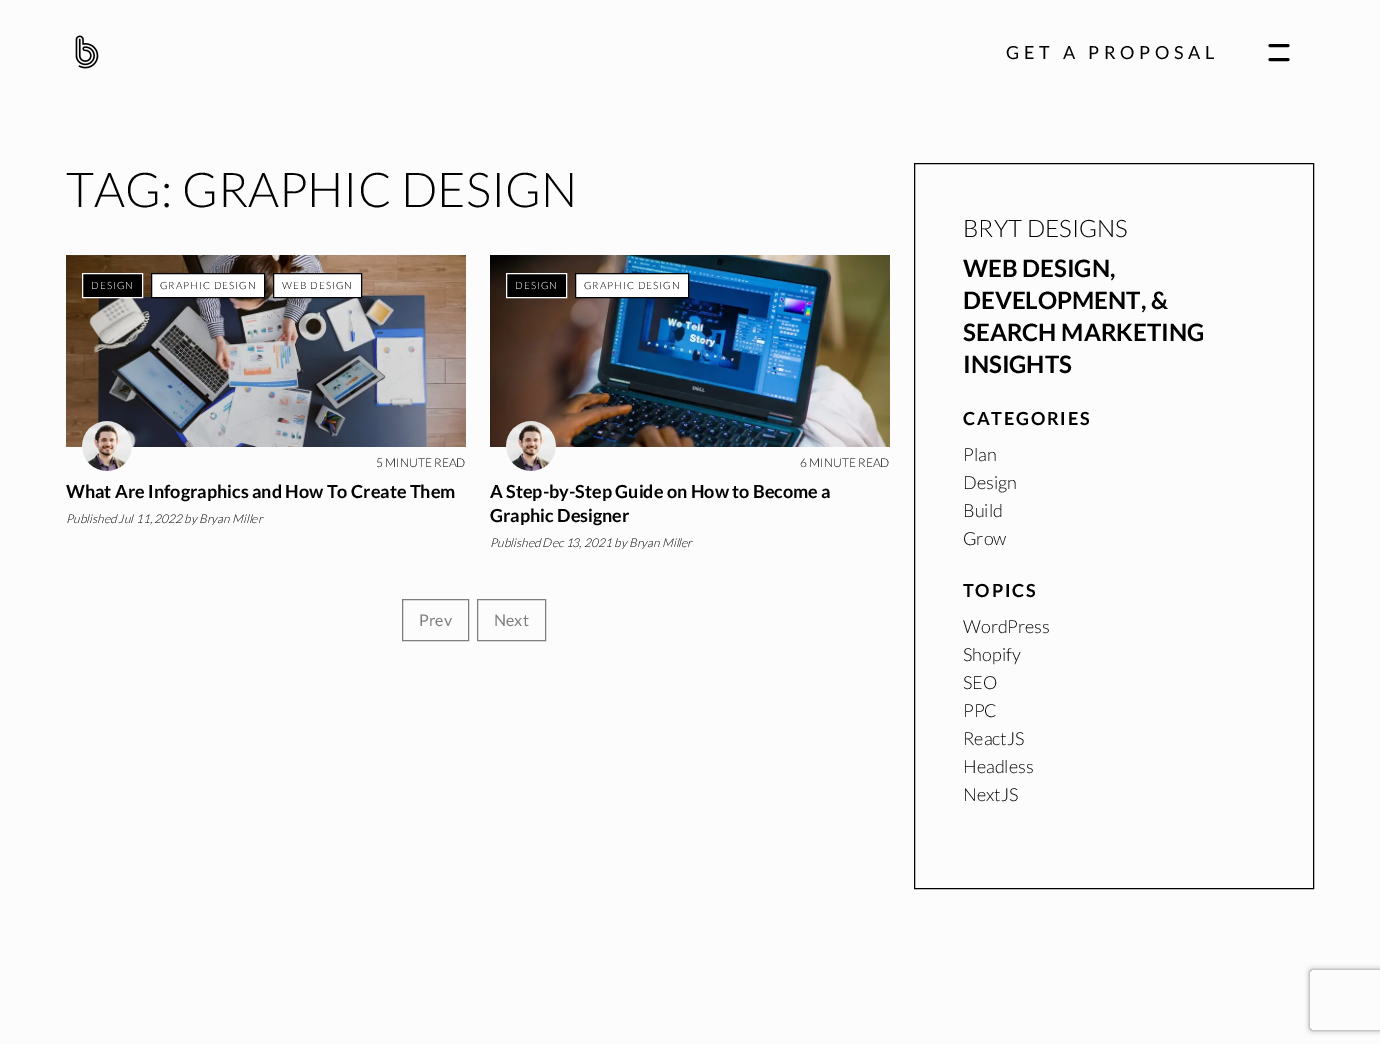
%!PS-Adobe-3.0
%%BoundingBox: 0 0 1380 1044
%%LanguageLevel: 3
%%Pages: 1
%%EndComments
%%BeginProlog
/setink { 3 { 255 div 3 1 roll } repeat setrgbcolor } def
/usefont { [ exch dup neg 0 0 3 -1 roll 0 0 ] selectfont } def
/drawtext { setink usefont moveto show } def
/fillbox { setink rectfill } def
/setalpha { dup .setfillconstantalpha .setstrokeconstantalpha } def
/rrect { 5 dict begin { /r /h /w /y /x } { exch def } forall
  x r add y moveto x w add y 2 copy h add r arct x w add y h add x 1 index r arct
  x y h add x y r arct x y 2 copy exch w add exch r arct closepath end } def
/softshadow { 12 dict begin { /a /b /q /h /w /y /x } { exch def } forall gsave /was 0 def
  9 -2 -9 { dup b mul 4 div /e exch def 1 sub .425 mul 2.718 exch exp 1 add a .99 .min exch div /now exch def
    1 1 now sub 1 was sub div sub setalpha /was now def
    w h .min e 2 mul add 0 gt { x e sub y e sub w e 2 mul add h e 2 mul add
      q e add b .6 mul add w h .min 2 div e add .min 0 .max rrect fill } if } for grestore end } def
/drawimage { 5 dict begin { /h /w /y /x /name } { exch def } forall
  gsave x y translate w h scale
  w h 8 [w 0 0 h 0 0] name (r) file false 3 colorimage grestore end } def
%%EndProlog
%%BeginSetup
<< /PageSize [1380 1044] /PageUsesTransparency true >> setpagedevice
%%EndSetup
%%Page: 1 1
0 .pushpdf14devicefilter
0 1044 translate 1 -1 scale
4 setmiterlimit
0 0 1380 1044 252 252 252 fillbox
(assets/img1.rgb) 75 35 24 34 drawimage
/Lato-Regular 18 usefont
0 0 0 setink
1006 59 moveto 4.75 0 (GET A PROPOSAL) ashow
3 setlinewidth
1 setlinecap
1270 45.5 moveto 1288 45.5 lineto 1270 59.5 moveto 1288 59.5 lineto stroke
(TAG: GRAPHIC DESIGN) 66 207 /Lato-Light 48 0 0 0 drawtext
(assets/img2.rgb) 66 255 400 192 drawimage
82.5 273.5 moveto 142.5 273.5 lineto 142.5 297.5 lineto 82.5 297.5 lineto closepath gsave fill grestore
255 255 255 setink
1 setlinewidth
0 setlinecap
stroke
/Lato-Light 10 usefont
91 289 moveto 1 0 (DESIGN) ashow
151.5 273.5 moveto 264.5 273.5 lineto 264.5 297.5 lineto 151.5 297.5 lineto closepath gsave fill grestore
0 0 0 setink
stroke
160 289 moveto 1 0 (GRAPHIC DESIGN) ashow
255 255 255 setink
273.5 273.5 moveto 361.5 273.5 lineto 361.5 297.5 lineto 273.5 297.5 lineto closepath gsave fill grestore
0 0 0 setink
stroke
282 289 moveto 1 0 (WEB DESIGN) ashow
(assets/img3.rgb) 82 421 50 50 drawimage
(5 MINUTE READ) 376 467 /Lato-Light 12 0 0 0 drawtext
(What Are Infographics and How To Create Them) 66 498 /Lato-Bold 18 0 0 0 drawtext
(Published Jul 11, 2022 by Bryan Miller) 66 523 /Lato-LightItalic 12 0 0 0 drawtext
(assets/img4.rgb) 490 255 400 192 drawimage
506.5 273.5 moveto 566.5 273.5 lineto 566.5 297.5 lineto 506.5 297.5 lineto closepath gsave fill grestore
255 255 255 setink
stroke
/Lato-Light 10 usefont
515 289 moveto 1 0 (DESIGN) ashow
575.5 273.5 moveto 688.5 273.5 lineto 688.5 297.5 lineto 575.5 297.5 lineto closepath gsave fill grestore
0 0 0 setink
stroke
584 289 moveto 1 0 (GRAPHIC DESIGN) ashow
(assets/img5.rgb) 506 421 50 50 drawimage
(6 MINUTE READ) 800 467 /Lato-Light 12 0 0 0 drawtext
(A Step-by-Step Guide on How to Become a) 490 498 /Lato-Bold 18 0 0 0 drawtext
(Graphic Designer) 490 522 /Lato-Bold 18 0 0 0 drawtext
(Published Dec 13, 2021 by Bryan Miller) 490 547 /Lato-LightItalic 12 0 0 0 drawtext
126 126 126 setink
402.5 599.5 66 41 rectstroke
(Prev) 419 626 /Lato-Regular 16 126 126 126 drawtext
477.5 599.5 68 41 rectstroke
(Next) 494 626 /Lato-Regular 16 126 126 126 drawtext
0 0 0 setink
914.5 163.5 399 725 rectstroke
(BRYT DESIGNS) 963 237 /Lato-Light 24 0 0 0 drawtext
(WEB DESIGN,) 963 277 /Lato-Bold 24 0 0 0 drawtext
(DEVELOPMENT, &) 963 309 /Lato-Bold 24 0 0 0 drawtext
(SEARCH MARKETING) 963 341 /Lato-Bold 24 0 0 0 drawtext
(INSIGHTS) 963 373 /Lato-Bold 24 0 0 0 drawtext
/Lato-Bold 18 usefont
963 425 moveto 1.75 0 (CATEGORIES) ashow
(Plan) 963 461 /Lato-Light 18 0 0 0 drawtext
(Design) 963 489 /Lato-Light 18 0 0 0 drawtext
(Build) 963 517 /Lato-Light 18 0 0 0 drawtext
(Grow) 963 545 /Lato-Light 18 0 0 0 drawtext
/Lato-Bold 18 usefont
963 597 moveto 1.75 0 (TOPICS) ashow
(WordPress) 963 633 /Lato-Light 18 0 0 0 drawtext
(Shopify) 963 661 /Lato-Light 18 0 0 0 drawtext
(SEO) 963 689 /Lato-Light 18 0 0 0 drawtext
(PPC) 963 717 /Lato-Light 18 0 0 0 drawtext
(ReactJS) 963 745 /Lato-Light 18 0 0 0 drawtext
(Headless) 963 773 /Lato-Light 18 0 0 0 drawtext
(NextJS) 963 801 /Lato-Light 18 0 0 0 drawtext
gsave
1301 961 moveto 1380 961 lineto 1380 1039 lineto 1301 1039 lineto closepath 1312 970 moveto 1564 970 lineto 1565 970 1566 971 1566 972 curveto 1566 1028 lineto 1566 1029 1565 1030 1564 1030 curveto 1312 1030 lineto 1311 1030 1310 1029 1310 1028 curveto 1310 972 lineto 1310 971 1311 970 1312 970 curveto closepath eoclip newpath
128 128 128 setink
1310 970 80 60 2 2.5 1 softshadow
grestore
.poppdf14devicefilter showpage
%%EOF
